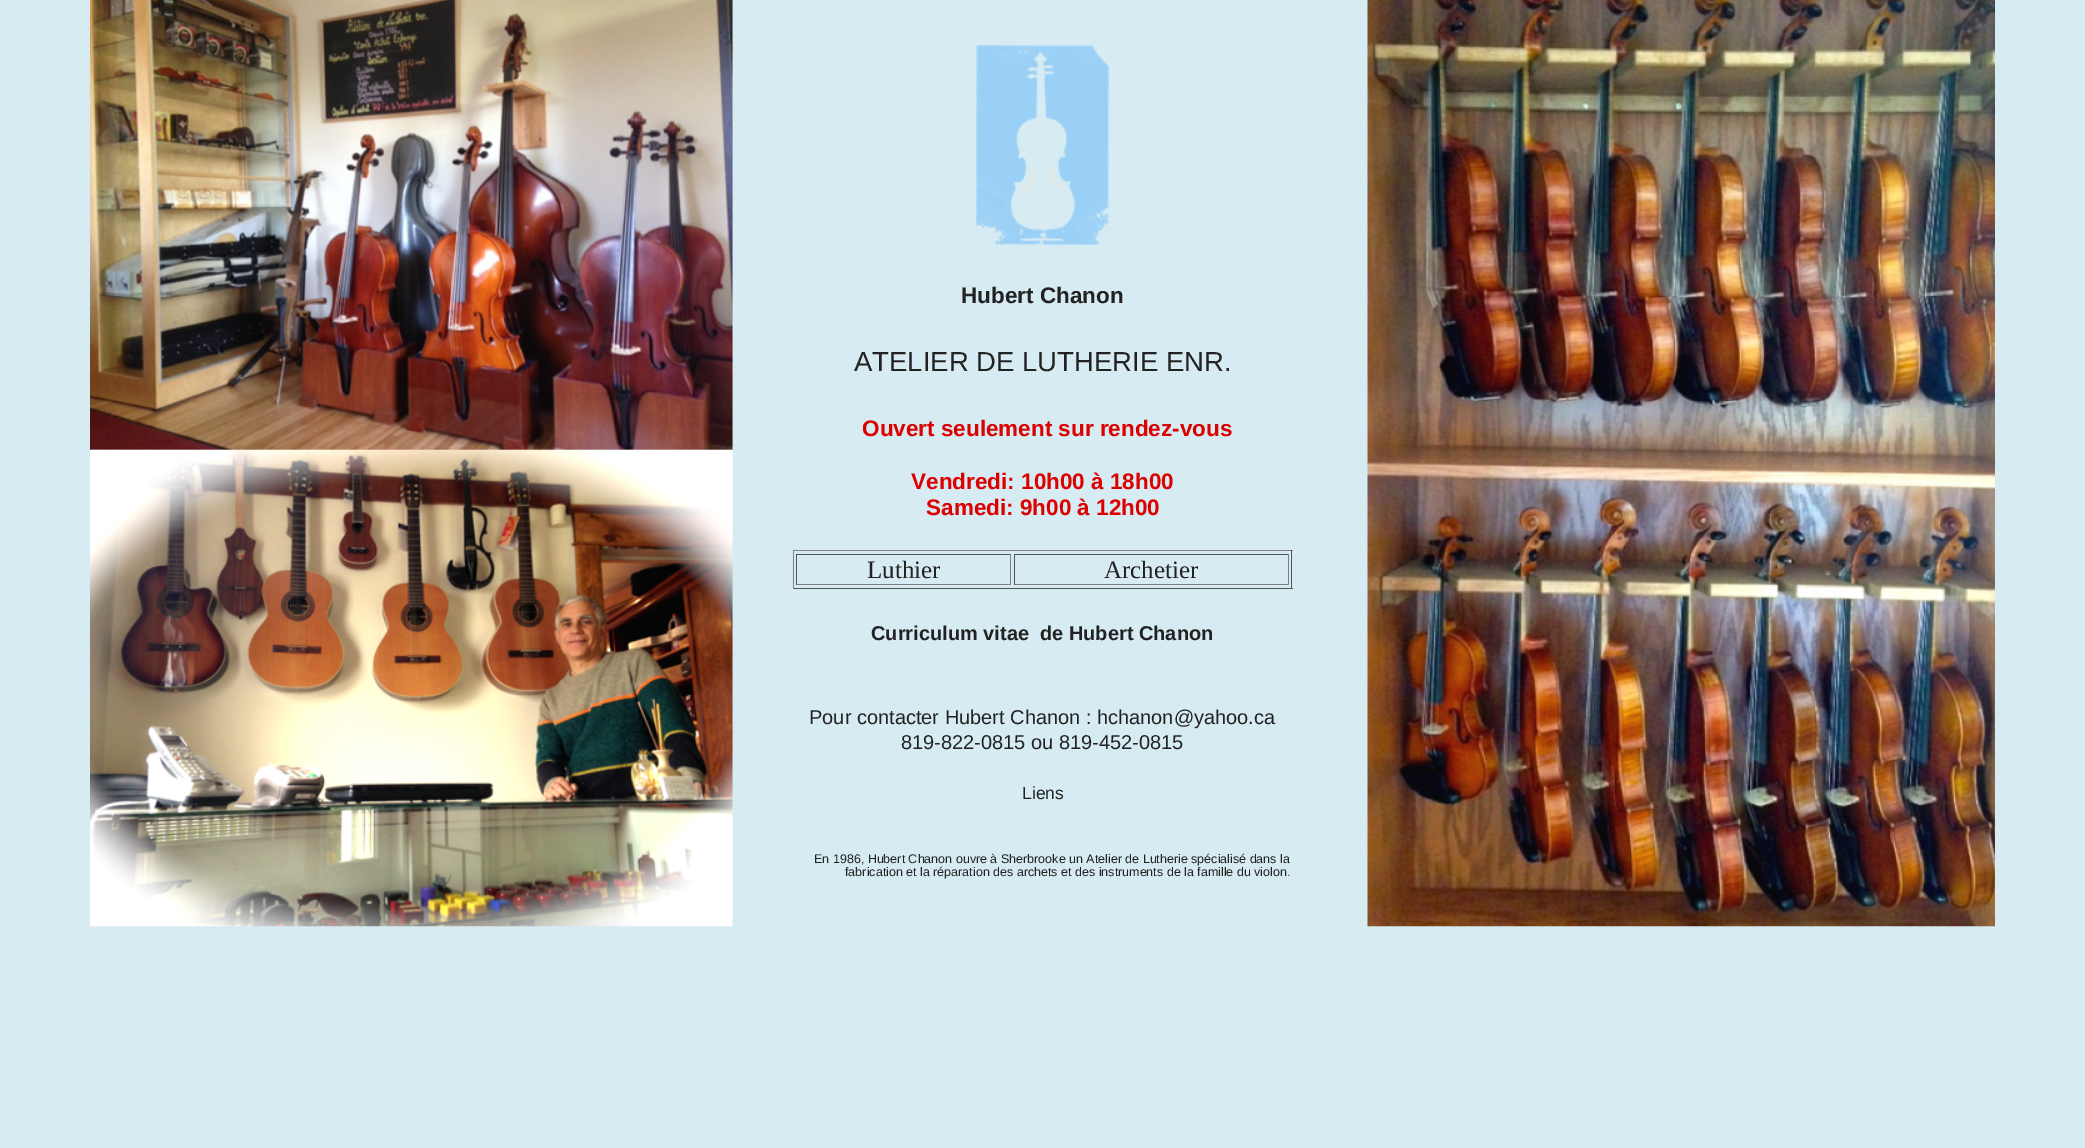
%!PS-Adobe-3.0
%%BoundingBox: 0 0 2085 1148
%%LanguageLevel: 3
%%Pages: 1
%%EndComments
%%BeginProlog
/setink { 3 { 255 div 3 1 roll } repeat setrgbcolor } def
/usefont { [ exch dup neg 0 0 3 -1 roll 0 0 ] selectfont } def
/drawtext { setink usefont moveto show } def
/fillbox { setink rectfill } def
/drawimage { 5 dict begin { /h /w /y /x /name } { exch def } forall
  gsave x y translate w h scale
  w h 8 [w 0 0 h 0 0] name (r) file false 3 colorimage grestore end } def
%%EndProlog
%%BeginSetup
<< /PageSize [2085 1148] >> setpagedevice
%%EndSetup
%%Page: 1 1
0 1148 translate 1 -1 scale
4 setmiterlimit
0 0 2085 1148 215 235 242 fillbox
(assets/img1.rgb) 90 0 1905 927 drawimage
(assets/img2.rgb) 976 45 133 200 drawimage
(Hubert Chanon) 961 303 /LiberationSans-Bold 22.5 34 34 34 drawtext
(ATELIER DE LUTHERIE ENR.) 854 371 /LiberationSans-Regular 27.5 34 34 34 drawtext
(Ouvert seulement sur rendez-vous) 862 436 /LiberationSans-Bold 22.5 221 0 0 drawtext
(Vendredi: 10h00 à 18h00) 911 489 /LiberationSans-Bold 22.5 221 0 0 drawtext
(Samedi: 9h00 à 12h00) 926 515 /LiberationSans-Bold 22.5 221 0 0 drawtext
793 550 500 1 128 128 128 fillbox
1291 550 1 39 85 85 85 fillbox
793 588 500 1 85 85 85 fillbox
793 550 1 39 128 128 128 fillbox
796 554 215 1 85 85 85 fillbox
1010 554 1 31 128 128 128 fillbox
796 584 215 1 128 128 128 fillbox
796 554 1 31 85 85 85 fillbox
(Luthier) 867 578 /LiberationSerif-Regular 25 34 34 34 drawtext
1014 554 275 1 85 85 85 fillbox
1288 554 1 31 128 128 128 fillbox
1014 584 275 1 128 128 128 fillbox
1014 554 1 31 85 85 85 fillbox
(Archetier) 1104 578 /LiberationSerif-Regular 25 34 34 34 drawtext
(Curriculum vitae  de Hubert Chanon) 871 640 /LiberationSans-Bold 20 34 34 34 drawtext
(Pour contacter Hubert Chanon : hchanon@yahoo.ca) 809 724 /LiberationSans-Regular 20 34 34 34 drawtext
(819-822-0815 ou 819-452-0815) 901 749 /LiberationSans-Regular 20 34 34 34 drawtext
(Liens) 1022 799 /LiberationSans-Regular 17.5 34 34 34 drawtext
(En 1986, Hubert Chanon ouvre à Sherbrooke un Atelier de Lutherie spécialisé dans la) 814 863 /LiberationSans-Regular 12.5 34 34 34 drawtext
(fabrication et la réparation des archets et des instruments de la famille du violon.) 845 876 /LiberationSans-Regular 12.5 34 34 34 drawtext
showpage
%%EOF
